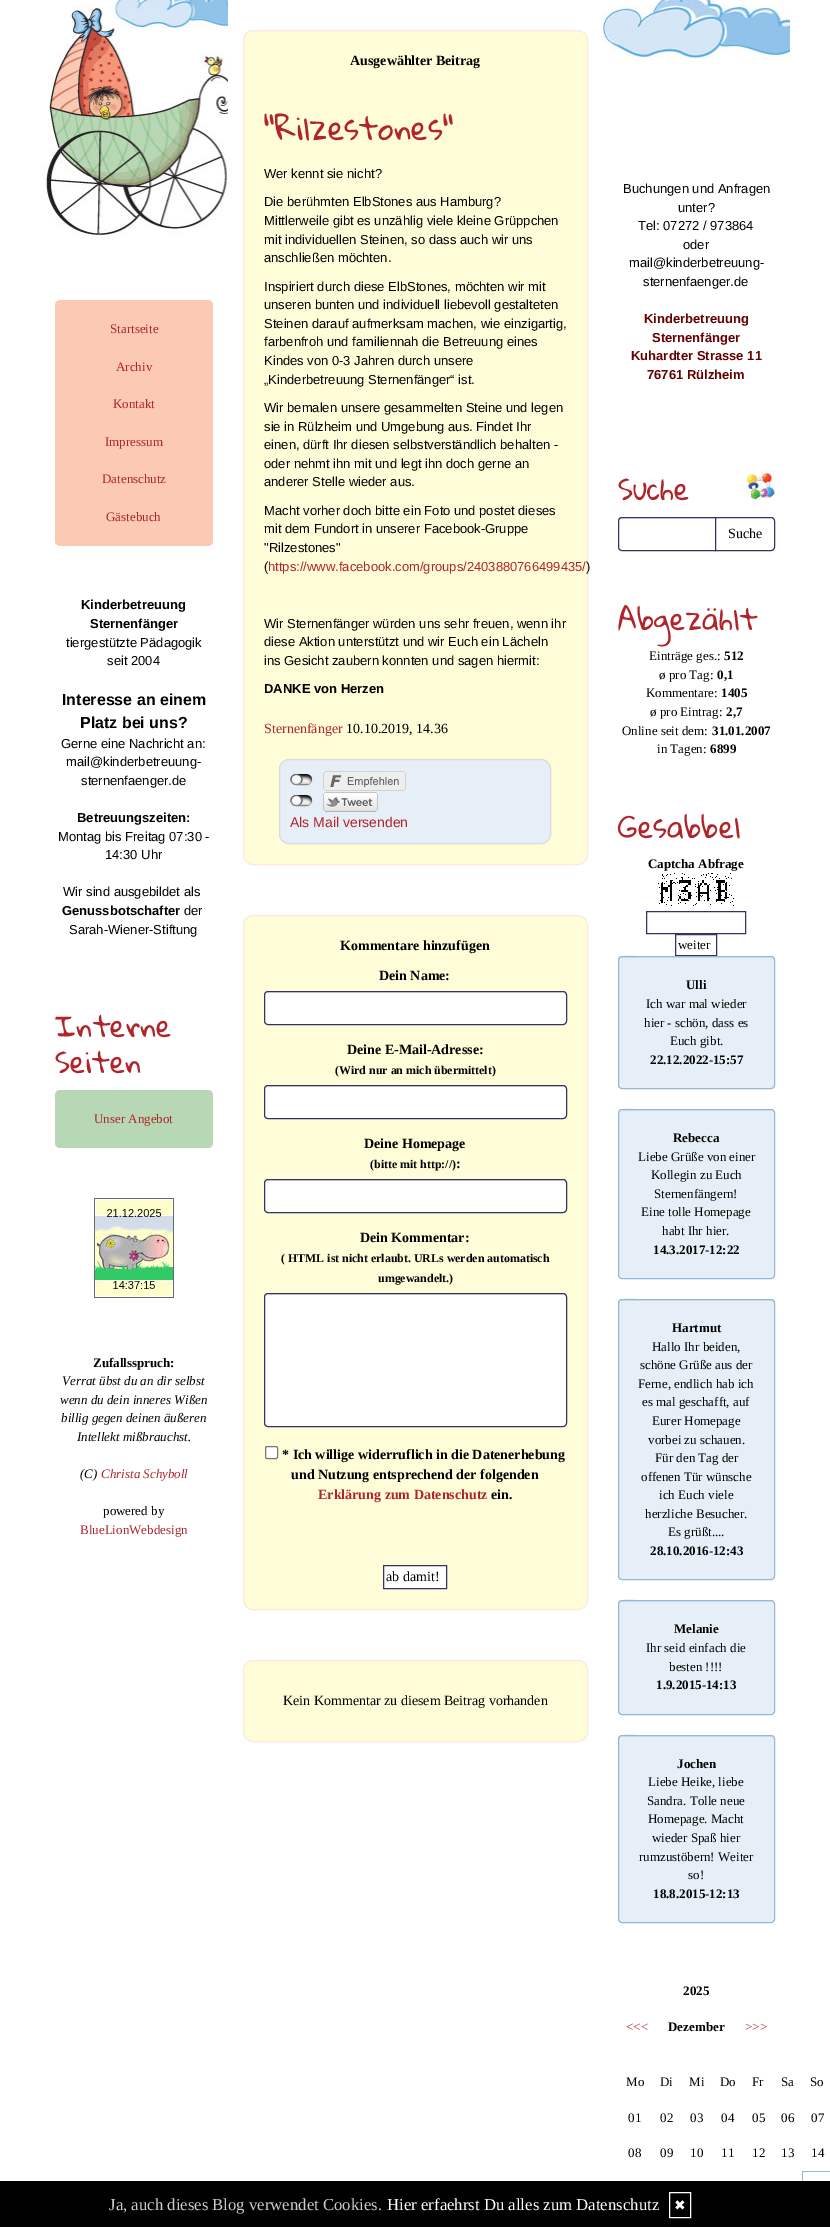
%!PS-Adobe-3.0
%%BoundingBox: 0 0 830 2227
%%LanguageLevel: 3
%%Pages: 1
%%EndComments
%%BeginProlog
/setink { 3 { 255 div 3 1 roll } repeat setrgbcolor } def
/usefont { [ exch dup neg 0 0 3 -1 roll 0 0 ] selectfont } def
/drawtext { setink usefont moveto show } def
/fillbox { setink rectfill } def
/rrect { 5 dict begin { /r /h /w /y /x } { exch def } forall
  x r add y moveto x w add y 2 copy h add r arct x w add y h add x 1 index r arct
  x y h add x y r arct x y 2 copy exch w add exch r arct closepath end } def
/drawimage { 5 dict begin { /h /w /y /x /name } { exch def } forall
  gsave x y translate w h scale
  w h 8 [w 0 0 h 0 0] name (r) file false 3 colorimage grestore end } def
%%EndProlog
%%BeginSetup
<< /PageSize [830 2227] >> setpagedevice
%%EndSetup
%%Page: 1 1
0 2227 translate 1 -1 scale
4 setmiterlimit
0 0 830 2227 255 255 255 fillbox
(assets/img1.rgb) 40 0 188 236 drawimage
251 201 180 setink
55 300 158 246 5 rrect fill
(Startseite) 110 333 /LiberationSerif-Regular 13 176 37 42 drawtext
(Archiv) 116 371 /LiberationSerif-Regular 13 176 37 42 drawtext
(Kontakt) 113 408 /LiberationSerif-Regular 13 176 37 42 drawtext
(Impressum) 105 446 /LiberationSerif-Regular 13 176 37 42 drawtext
(Datenschutz) 102 483 /LiberationSerif-Regular 13 176 37 42 drawtext
(Gästebuch) 106 521 /LiberationSerif-Regular 13 176 37 42 drawtext
(Kinderbetreuung) 81 609 /LiberationSans-Bold 13 0 0 0 drawtext
(Sternenfänger) 90 628 /LiberationSans-Bold 13 0 0 0 drawtext
(tiergestützte Pädagogik) 66 647 /LiberationSans-Regular 13 0 0 0 drawtext
(seit 2004) 107 665 /LiberationSans-Regular 13 0 0 0 drawtext
(Interesse an einem) 62 705 /LiberationSans-Bold 16 0 0 0 drawtext
(Platz bei uns?) 80 728 /LiberationSans-Bold 16 0 0 0 drawtext
(Gerne eine Nachricht an:) 61 748 /LiberationSans-Regular 13 0 0 0 drawtext
(mail@kinderbetreuung-) 66 766 /LiberationSans-Regular 13 0 0 0 drawtext
(sternenfaenger.de) 81 785 /LiberationSans-Regular 13 0 0 0 drawtext
(Betreuungszeiten:) 77 822 /LiberationSans-Bold 13 0 0 0 drawtext
(Montag bis Freitag 07:30 -) 58 841 /LiberationSans-Regular 13 0 0 0 drawtext
(14:30 Uhr) 105 859 /LiberationSans-Regular 13 0 0 0 drawtext
(Wir sind ausgebildet als) 63 896 /LiberationSans-Regular 13 0 0 0 drawtext
(Genussbotschafter) 62 915 /LiberationSans-Bold 13 0 0 0 drawtext
(der) 184 915 /LiberationSans-Regular 13 0 0 0 drawtext
(Sarah-Wiener-Stiftung) 69 934 /LiberationSans-Regular 13 0 0 0 drawtext
(Interne) 55 1037 /GloriaHallelujah-Regular 28.5 176 37 42 drawtext
(Seiten) 55 1073 /GloriaHallelujah-Regular 28.5 176 37 42 drawtext
184 215 180 setink
55 1090 158 58 5 rrect fill
(Unser Angebot) 94 1123 /LiberationSerif-Regular 13 176 37 42 drawtext
(assets/img2.rgb) 94 1198 80 100 drawimage
(Zufallsspruch:) 93 1367 /LiberationSerif-Bold 13 0 0 0 drawtext
(Verrat übst du an dir selbst) 62 1385 /LiberationSerif-Italic 13 0 0 0 drawtext
(wenn du dein inneres Wißen) 60 1404 /LiberationSerif-Italic 13 0 0 0 drawtext
(billig gegen deinen äußeren) 61 1422 /LiberationSerif-Italic 13 0 0 0 drawtext
(Intellekt mißbrauchst.) 77 1441 /LiberationSerif-Italic 13 0 0 0 drawtext
(\(C\)) 80 1478 /LiberationSerif-Italic 13 0 0 0 drawtext
(Christa Schyboll) 101 1478 /LiberationSerif-Italic 13 176 37 42 drawtext
(powered by) 103 1515 /LiberationSerif-Regular 13 0 0 0 drawtext
(BlueLionWebdesign) 80 1534 /LiberationSerif-Regular 13 176 37 42 drawtext
255 253 215 setink
243.5 30.5 344 834 9.5 rrect gsave fill grestore
253 233 224 setink
stroke
(Ausgewählter Beitrag) 350 65 /LiberationSerif-Bold 14 0 0 0 drawtext
("Rilzestones") 264 140 /GloriaHallelujah-Regular 30.75 176 37 42 drawtext
(Wer kennt sie nicht?) 264 178 /LiberationSans-Regular 13 0 0 0 drawtext
(Die berühmten ElbStones aus Hamburg?) 264 206 /LiberationSans-Regular 13 0 0 0 drawtext
(Mittlerweile gibt es unzählig viele kleine Grüppchen) 264 225 /LiberationSans-Regular 13 0 0 0 drawtext
(mit individuellen Steinen, so dass auch wir uns) 264 244 /LiberationSans-Regular 13 0 0 0 drawtext
(anschließen möchten.) 264 262 /LiberationSans-Regular 13 0 0 0 drawtext
(Inspiriert durch diese ElbStones, möchten wir mit) 264 291 /LiberationSans-Regular 13 0 0 0 drawtext
(unseren bunten und individuell liebevoll gestalteten) 264 309 /LiberationSans-Regular 13 0 0 0 drawtext
(Steinen darauf aufmerksam machen, wie einzigartig,) 264 328 /LiberationSans-Regular 13 0 0 0 drawtext
(farbenfroh und familiennah die Betreuung eines) 264 346 /LiberationSans-Regular 13 0 0 0 drawtext
(Kindes von 0-3 Jahren durch unsere) 264 365 /LiberationSans-Regular 13 0 0 0 drawtext
(„Kinderbetreuung Sternenfänger“ ist.) 264 384 /LiberationSans-Regular 13 0 0 0 drawtext
(Wir bemalen unsere gesammelten Steine und legen) 264 412 /LiberationSans-Regular 13 0 0 0 drawtext
(sie in Rülzheim und Umgebung aus. Findet Ihr) 264 431 /LiberationSans-Regular 13 0 0 0 drawtext
(einen, dürft Ihr diesen selbstverständlich behalten -) 264 449 /LiberationSans-Regular 13 0 0 0 drawtext
(oder nehmt ihn mit und legt ihn doch gerne an) 264 468 /LiberationSans-Regular 13 0 0 0 drawtext
(anderer Stelle wieder aus.) 264 486 /LiberationSans-Regular 13 0 0 0 drawtext
(Macht vorher doch bitte ein Foto und postet dieses) 264 515 /LiberationSans-Regular 13 0 0 0 drawtext
(mit dem Fundort in unserer Facebook-Gruppe) 264 533 /LiberationSans-Regular 13 0 0 0 drawtext
("Rilzestones") 264 552 /LiberationSans-Regular 13 0 0 0 drawtext
(\() 264 571 /LiberationSans-Regular 13 0 0 0 drawtext
(https://www.facebook.com/groups/2403880766499435/) 268 571 /LiberationSans-Regular 13 176 37 42 drawtext
(\)) 586 571 /LiberationSans-Regular 13 0 0 0 drawtext
(Wir Sternenfänger würden uns sehr freuen, wenn ihr) 264 628 /LiberationSans-Regular 13 0 0 0 drawtext
(diese Aktion unterstützt und wir Euch ein Lächeln) 264 646 /LiberationSans-Regular 13 0 0 0 drawtext
(ins Gesicht zaubern konnten und sagen hiermit:) 264 665 /LiberationSans-Regular 13 0 0 0 drawtext
(DANKE von Herzen) 264 693 /LiberationSans-Bold 13 0 0 0 drawtext
(Sternenfänger) 264 733 /LiberationSerif-Regular 14 176 37 42 drawtext
(10.10.2019, 14.36) 346 733 /LiberationSerif-Regular 14 0 0 0 drawtext
230 239 248 setink
279.5 759.5 271 84 9.5 rrect gsave fill grestore
218 218 218 setink
stroke
(assets/img3.rgb) 290 774 23 12 drawimage
(assets/img4.rgb) 323 771 83 20 drawimage
(assets/img3.rgb) 290 795 23 12 drawimage
(assets/img5.rgb) 323 792 55 20 drawimage
(Als Mail versenden) 290 827 /LiberationSans-Regular 14 176 37 42 drawtext
255 253 215 setink
243.5 915.5 344 694 9.5 rrect gsave fill grestore
253 233 224 setink
stroke
(Kommentare hinzufügen) 340 950 /LiberationSerif-Bold 14 0 0 0 drawtext
(Dein Name:) 379 980 /LiberationSerif-Bold 14 0 0 0 drawtext
255 255 255 setink
264 991 303 34 4 rrect fill
236 236 236 setink
268 993 moveto 563 993 lineto 565 993 566 994 566 996 curveto 565 993 lineto 564 992 lineto 268 992 lineto 266 992 265 994 265 996 curveto 265 994 266 993 268 993 curveto closepath fill
51 51 102 setink
264.5 991.5 302 33 3.5 rrect stroke
(Deine E-Mail-Adresse:) 347 1054 /LiberationSerif-Bold 14 0 0 0 drawtext
(\(Wird nur an mich übermittelt\)) 335 1074 /LiberationSerif-Bold 11.9 0 0 0 drawtext
255 255 255 setink
264 1085 303 34 4 rrect fill
236 236 236 setink
268 1087 moveto 563 1087 lineto 565 1087 566 1088 566 1090 curveto 565 1087 lineto 564 1086 lineto 268 1086 lineto 266 1086 265 1088 265 1090 curveto 265 1088 266 1087 268 1087 curveto closepath fill
51 51 102 setink
264.5 1085.5 302 33 3.5 rrect stroke
(Deine Homepage) 364 1148 /LiberationSerif-Bold 14 0 0 0 drawtext
(\(bitte mit http://\)) 370 1168 /LiberationSerif-Bold 11.9 0 0 0 drawtext
(:) 456 1168 /LiberationSerif-Bold 14 0 0 0 drawtext
255 255 255 setink
264 1179 303 34 4 rrect fill
236 236 236 setink
268 1181 moveto 563 1181 lineto 565 1181 566 1182 566 1184 curveto 565 1181 lineto 564 1180 lineto 268 1180 lineto 266 1180 265 1182 265 1184 curveto 265 1182 266 1181 268 1181 curveto closepath fill
51 51 102 setink
264.5 1179.5 302 33 3.5 rrect stroke
(Dein Kommentar:) 360 1242 /LiberationSerif-Bold 14 0 0 0 drawtext
(\( HTML ist nicht erlaubt. URLs werden automatisch) 281 1262 /LiberationSerif-Bold 11.9 0 0 0 drawtext
(umgewandelt.\)) 378 1282 /LiberationSerif-Bold 11.9 0 0 0 drawtext
255 255 255 setink
264 1293 303 134 4 rrect fill
236 236 236 setink
268 1295 moveto 563 1295 lineto 565 1295 566 1296 566 1298 curveto 565 1295 lineto 564 1294 lineto 268 1294 lineto 266 1294 265 1296 265 1298 curveto 265 1296 266 1295 268 1295 curveto closepath fill
51 51 102 setink
264.5 1293.5 302 133 3.5 rrect stroke
255 255 255 setink
265.5 1446.5 12 12 1.5 rrect gsave fill grestore
118 118 118 setink
stroke
(* Ich willige widerruflich in die Datenerhebung) 282 1459 /LiberationSerif-Bold 14 0 0 0 drawtext
(und Nutzung entsprechend der folgenden) 291 1479 /LiberationSerif-Bold 14 0 0 0 drawtext
(Erklärung zum Datenschutz) 318 1499 /LiberationSerif-Bold 14 176 37 42 drawtext
(ein.) 491 1499 /LiberationSerif-Bold 14 0 0 0 drawtext
255 255 255 setink
383.5 1565.5 moveto 446.5 1565.5 lineto 446.5 1588.5 lineto 383.5 1588.5 lineto closepath gsave fill grestore
51 51 102 setink
stroke
(ab damit!) 386 1581 /LiberationSerif-Regular 14 0 0 0 drawtext
255 253 215 setink
243.5 1660.5 344 81 9.5 rrect gsave fill grestore
253 233 224 setink
stroke
(Kein Kommentar zu diesem Beitrag vorhanden) 283 1705 /LiberationSerif-Regular 14 0 0 0 drawtext
(assets/img6.rgb) 603 0 187 60 drawimage
(Buchungen und Anfragen) 623 193 /LiberationSans-Regular 13 0 0 0 drawtext
(unter?) 678 212 /LiberationSans-Regular 13 0 0 0 drawtext
(Tel: 07272 / 973864) 638 230 /LiberationSans-Regular 13 0 0 0 drawtext
(oder) 683 249 /LiberationSans-Regular 13 0 0 0 drawtext
(mail@kinderbetreuung-) 629 267 /LiberationSans-Regular 13 0 0 0 drawtext
(sternenfaenger.de) 643 286 /LiberationSans-Regular 13 0 0 0 drawtext
(Kinderbetreuung) 644 323 /LiberationSans-Bold 13 102 0 0 drawtext
(Sternenfänger) 652 342 /LiberationSans-Bold 13 102 0 0 drawtext
(Kuhardter Strasse 11) 631 360 /LiberationSans-Bold 13 102 0 0 drawtext
(76761 Rülzheim) 647 379 /LiberationSans-Bold 13 102 0 0 drawtext
(assets/img7.rgb) 746 471 29 29 drawimage
(Suche) 618 500 /GloriaHallelujah-Regular 28.5 176 37 42 drawtext
236 236 236 setink
622 519 moveto 715 519 lineto 715 518 lineto 622 518 lineto 620 518 619 519 619 521 curveto 619 522 lineto 619 520 620 519 622 519 curveto closepath fill
51 51 102 setink
622 517.5 moveto 715.5 517.5 lineto 715.5 550.5 lineto 622 550.5 lineto 620 550.5 618.5 549 618.5 547 curveto 618.5 521 lineto 618.5 519 620 517.5 622 517.5 curveto closepath stroke
255 255 255 setink
715.5 517.5 moveto 771 517.5 lineto 773 517.5 774.5 519 774.5 521 curveto 774.5 547 lineto 774.5 549 773 550.5 771 550.5 curveto 715.5 550.5 lineto closepath gsave fill grestore
51 51 102 setink
stroke
(Suche) 728 538 /LiberationSerif-Regular 14 0 0 0 drawtext
(Abgezählt) 618 630 /GloriaHallelujah-Regular 28.5 176 37 42 drawtext
(Einträge ges.:) 649 660 /LiberationSerif-Regular 13 0 0 0 drawtext
(512) 724 660 /LiberationSerif-Bold 13 0 0 0 drawtext
(ø pro Tag:) 659 679 /LiberationSerif-Regular 13 0 0 0 drawtext
(0,1) 717 679 /LiberationSerif-Bold 13 0 0 0 drawtext
(Kommentare:) 646 697 /LiberationSerif-Regular 13 0 0 0 drawtext
(1405) 721 697 /LiberationSerif-Bold 13 0 0 0 drawtext
(ø pro Eintrag:) 650 716 /LiberationSerif-Regular 13 0 0 0 drawtext
(2,7) 726 716 /LiberationSerif-Bold 13 0 0 0 drawtext
(Online seit dem:) 622 735 /LiberationSerif-Regular 13 0 0 0 drawtext
(31.01.2007) 712 735 /LiberationSerif-Bold 13 0 0 0 drawtext
(in Tagen:) 657 753 /LiberationSerif-Regular 13 0 0 0 drawtext
(6899) 710 753 /LiberationSerif-Bold 13 0 0 0 drawtext
(Gesabbel) 618 838 /GloriaHallelujah-Regular 28.5 176 37 42 drawtext
(Captcha Abfrage) 648 868 /LiberationSerif-Bold 13 0 0 0 drawtext
(assets/img8.rgb) 658 873 76 33 drawimage
51 51 102 setink
646.5 911.5 99 22 rectstroke
230 239 248 setink
618 956 157 133 4 rrect fill
219 227 236 setink
622 958 moveto 771 958 lineto 773 958 774 959 774 961 curveto 774 959 774 958 772 957 curveto 647 957 lineto 639 957 619 952 619 961 curveto 619 959 620 958 622 958 curveto closepath fill
51 51 102 setink
675.5 934.5 41 21 rectstroke
(weiter) 678 949 /LiberationSerif-Regular 13 0 0 0 drawtext
150 184 213 setink
618.5 956.5 156 132 3.5 rrect stroke
(Ulli) 686 989 /LiberationSerif-Bold 13 0 0 0 drawtext
(Ich war mal wieder) 646 1008 /LiberationSerif-Regular 13 0 0 0 drawtext
(hier - schön, dass es) 644 1027 /LiberationSerif-Regular 13 0 0 0 drawtext
(Euch gibt.) 670 1045 /LiberationSerif-Regular 13 0 0 0 drawtext
(22.12.2022-15:57) 650 1064 /LiberationSerif-Bold 13 0 0 0 drawtext
230 239 248 setink
618 1109 157 170 4 rrect fill
219 227 236 setink
622 1111 moveto 771 1111 lineto 773 1111 774 1112 774 1114 curveto 774 1112 774 1111 772 1110 curveto 647 1110 lineto 639 1110 619 1105 619 1114 curveto 619 1112 620 1111 622 1111 curveto closepath fill
150 184 213 setink
618.5 1109.5 156 169 3.5 rrect stroke
(Rebecca) 673 1142 /LiberationSerif-Bold 13 0 0 0 drawtext
(Liebe Grüße von einer) 638 1161 /LiberationSerif-Regular 13 0 0 0 drawtext
(Kollegin zu Euch) 651 1179 /LiberationSerif-Regular 13 0 0 0 drawtext
(Sternenfängern!) 654 1198 /LiberationSerif-Regular 13 0 0 0 drawtext
(Eine tolle Homepage) 641 1216 /LiberationSerif-Regular 13 0 0 0 drawtext
(habt Ihr hier.) 662 1235 /LiberationSerif-Regular 13 0 0 0 drawtext
(14.3.2017-12:22) 653 1254 /LiberationSerif-Bold 13 0 0 0 drawtext
230 239 248 setink
618 1299 157 281 4 rrect fill
219 227 236 setink
622 1301 moveto 771 1301 lineto 773 1301 774 1302 774 1304 curveto 774 1302 774 1301 772 1300 curveto 647 1300 lineto 639 1300 619 1295 619 1304 curveto 619 1302 620 1301 622 1301 curveto closepath fill
150 184 213 setink
618.5 1299.5 156 280 3.5 rrect stroke
(Hartmut) 672 1332 /LiberationSerif-Bold 13 0 0 0 drawtext
(Hallo Ihr beiden,) 652 1351 /LiberationSerif-Regular 13 0 0 0 drawtext
(schöne Grüße aus der) 640 1369 /LiberationSerif-Regular 13 0 0 0 drawtext
(Ferne, endlich hab ich) 638 1388 /LiberationSerif-Regular 13 0 0 0 drawtext
(es mal geschafft, auf) 642 1406 /LiberationSerif-Regular 13 0 0 0 drawtext
(Eurer Homepage) 652 1425 /LiberationSerif-Regular 13 0 0 0 drawtext
(vorbei zu schauen.) 648 1444 /LiberationSerif-Regular 13 0 0 0 drawtext
(Für den Tag der) 655 1462 /LiberationSerif-Regular 13 0 0 0 drawtext
(offenen Tür wünsche) 641 1481 /LiberationSerif-Regular 13 0 0 0 drawtext
(ich Euch viele) 659 1499 /LiberationSerif-Regular 13 0 0 0 drawtext
(herzliche Besucher.) 645 1518 /LiberationSerif-Regular 13 0 0 0 drawtext
(Es grüßt....) 668 1536 /LiberationSerif-Regular 13 0 0 0 drawtext
(28.10.2016-12:43) 650 1555 /LiberationSerif-Bold 13 0 0 0 drawtext
230 239 248 setink
618 1600 157 115 4 rrect fill
219 227 236 setink
622 1602 moveto 771 1602 lineto 773 1602 774 1603 774 1605 curveto 774 1603 774 1602 772 1601 curveto 647 1601 lineto 639 1601 619 1596 619 1605 curveto 619 1603 620 1602 622 1602 curveto closepath fill
150 184 213 setink
618.5 1600.5 156 114 3.5 rrect stroke
(Melanie) 674 1633 /LiberationSerif-Bold 13 0 0 0 drawtext
(Ihr seid einfach die) 646 1652 /LiberationSerif-Regular 13 0 0 0 drawtext
(besten !!!!) 669 1671 /LiberationSerif-Regular 13 0 0 0 drawtext
(1.9.2015-14:13) 656 1689 /LiberationSerif-Bold 13 0 0 0 drawtext
230 239 248 setink
618 1735 157 188 4 rrect fill
219 227 236 setink
622 1737 moveto 771 1737 lineto 773 1737 774 1738 774 1740 curveto 774 1738 774 1737 772 1736 curveto 647 1736 lineto 639 1736 619 1731 619 1740 curveto 619 1738 620 1737 622 1737 curveto closepath fill
150 184 213 setink
618.5 1735.5 156 187 3.5 rrect stroke
(Jochen) 677 1768 /LiberationSerif-Bold 13 0 0 0 drawtext
(Liebe Heike, liebe) 648 1786 /LiberationSerif-Regular 13 0 0 0 drawtext
(Sandra. Tolle neue) 647 1805 /LiberationSerif-Regular 13 0 0 0 drawtext
(Homepage. Macht) 648 1823 /LiberationSerif-Regular 13 0 0 0 drawtext
(wieder Spaß hier) 652 1842 /LiberationSerif-Regular 13 0 0 0 drawtext
(rumzustöbern! Weiter) 639 1861 /LiberationSerif-Regular 13 0 0 0 drawtext
(so!) 688 1879 /LiberationSerif-Regular 13 0 0 0 drawtext
(18.8.2015-12:13) 653 1898 /LiberationSerif-Bold 13 0 0 0 drawtext
(2025) 683 1995 /LiberationSerif-Bold 13 0 0 0 drawtext
(<<<) 626 2031 /LiberationSerif-Regular 13 176 37 42 drawtext
(Dezember) 668 2031 /LiberationSerif-Bold 13 0 0 0 drawtext
(>>>) 745 2031 /LiberationSerif-Regular 13 176 37 42 drawtext
(Mo) 626 2086 /LiberationSerif-Regular 13 0 0 0 drawtext
(Di) 660 2086 /LiberationSerif-Regular 13 0 0 0 drawtext
(Mi) 689 2086 /LiberationSerif-Regular 13 0 0 0 drawtext
(Do) 720 2086 /LiberationSerif-Regular 13 0 0 0 drawtext
(Fr) 752 2086 /LiberationSerif-Regular 13 0 0 0 drawtext
(Sa) 781 2086 /LiberationSerif-Regular 13 0 0 0 drawtext
(So) 810 2086 /LiberationSerif-Regular 13 0 0 0 drawtext
(01) 628 2122 /LiberationSerif-Regular 13 0 0 0 drawtext
(02) 660 2122 /LiberationSerif-Regular 13 0 0 0 drawtext
(03) 690 2122 /LiberationSerif-Regular 13 0 0 0 drawtext
(04) 721 2122 /LiberationSerif-Regular 13 0 0 0 drawtext
(05) 752 2122 /LiberationSerif-Regular 13 0 0 0 drawtext
(06) 781 2122 /LiberationSerif-Regular 13 0 0 0 drawtext
(07) 811 2122 /LiberationSerif-Regular 13 0 0 0 drawtext
(08) 628 2157 /LiberationSerif-Regular 13 0 0 0 drawtext
(09) 660 2157 /LiberationSerif-Regular 13 0 0 0 drawtext
(10) 690 2157 /LiberationSerif-Regular 13 0 0 0 drawtext
(11) 721 2157 /LiberationSerif-Regular 13 0 0 0 drawtext
(12) 752 2157 /LiberationSerif-Regular 13 0 0 0 drawtext
(13) 781 2157 /LiberationSerif-Regular 13 0 0 0 drawtext
(14) 811 2157 /LiberationSerif-Regular 13 0 0 0 drawtext
802 2171 28 1 150 184 213 fillbox
802 2171 1 10 150 184 213 fillbox
0 2182 830 45 0 0 0 fillbox
-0.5 2181.5 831 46 rectstroke
(Ja, auch dieses Blog verwendet Cookies.) 109 2210 /LiberationSerif-Regular 16.75 204 204 204 drawtext
(Hier erfaehrst Du alles zum Datenschutz) 387 2210 /LiberationSerif-Regular 16.75 255 255 255 drawtext
669.5 2192.5 21 25 rectstroke
(✖) 674 2210 /DejaVuSans-Regular 14 255 255 255 drawtext
showpage
%%EOF
